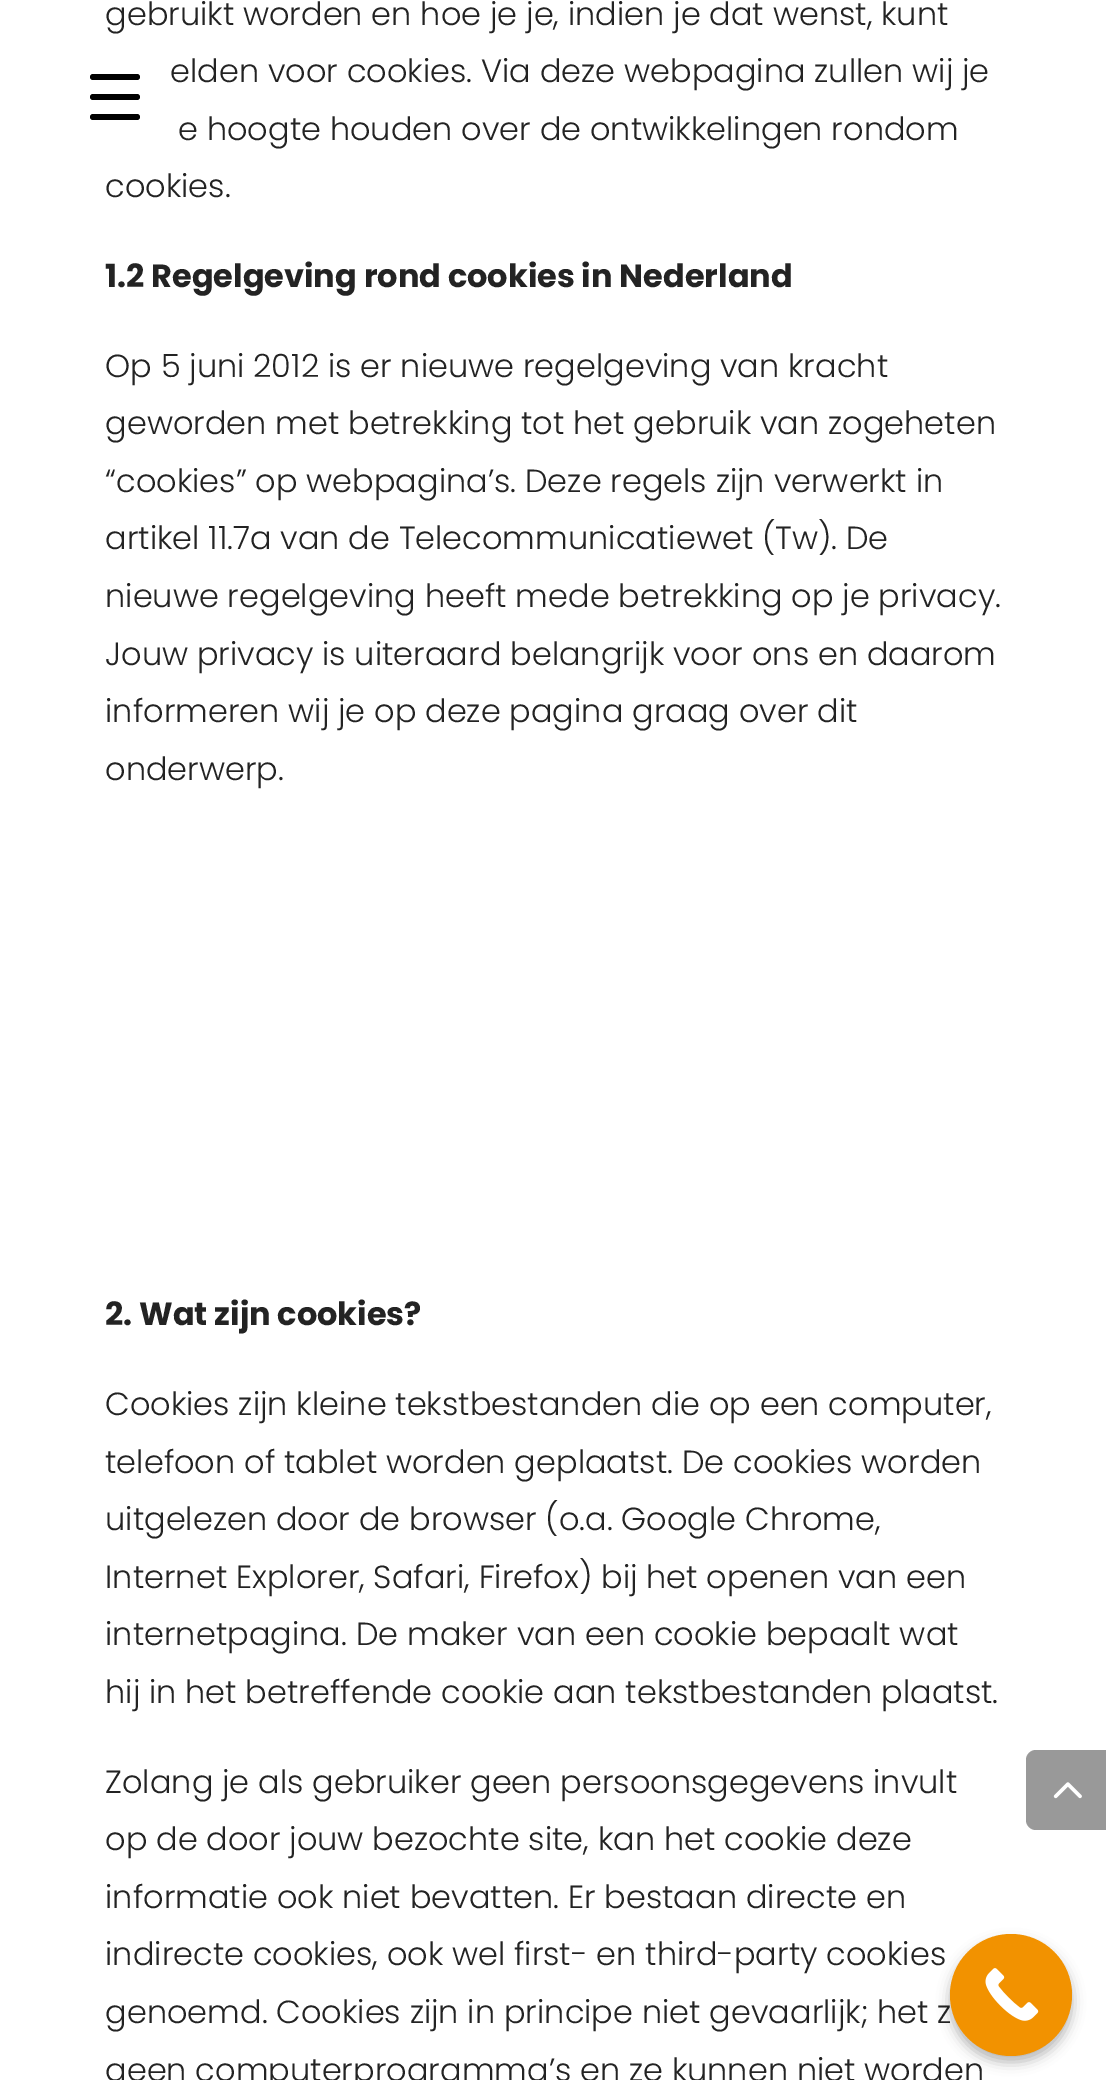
%!PS-Adobe-3.0
%%BoundingBox: 0 0 1106 2080
%%LanguageLevel: 3
%%Pages: 1
%%EndComments
%%BeginProlog
/setink { 3 { 255 div 3 1 roll } repeat setrgbcolor } def
/usefont { [ exch dup neg 0 0 3 -1 roll 0 0 ] selectfont } def
/drawtext { setink usefont moveto show } def
/fillbox { setink rectfill } def
/setalpha { dup .setfillconstantalpha .setstrokeconstantalpha } def
/disc { newpath 0 360 arc closepath } def
/rrect { 5 dict begin { /r /h /w /y /x } { exch def } forall
  x r add y moveto x w add y 2 copy h add r arct x w add y h add x 1 index r arct
  x y h add x y r arct x y 2 copy exch w add exch r arct closepath end } def
/softshadow { 12 dict begin { /a /b /q /h /w /y /x } { exch def } forall gsave /was 0 def
  9 -2 -9 { dup b mul 4 div /e exch def 1 sub .425 mul 2.718 exch exp 1 add a .99 .min exch div /now exch def
    1 1 now sub 1 was sub div sub setalpha /was now def
    w h .min e 2 mul add 0 gt { x e sub y e sub w e 2 mul add h e 2 mul add
      q e add b .6 mul add w h .min 2 div e add .min 0 .max rrect fill } if } for grestore end } def
/drawimage { 5 dict begin { /h /w /y /x /name } { exch def } forall
  gsave x y translate w h scale
  w h 8 [w 0 0 h 0 0] name (r) file false 3 colorimage grestore end } def
%%EndProlog
%%BeginSetup
<< /PageSize [1106 2080] /PageUsesTransparency true >> setpagedevice
%%EndSetup
%%Page: 1 1
0 .pushpdf14devicefilter
0 2080 translate 1 -1 scale
4 setmiterlimit
0 0 1106 2080 255 255 255 fillbox
(gebruikt worden en hoe je je, indien je dat wenst, kunt) 105 25 /Poppins-Light 32 35 35 35 drawtext
(elden voor cookies. Via deze webpagina zullen wij je) 170 82 /Poppins-Light 32 35 35 35 drawtext
(e hoogte houden over de ontwikkelingen rondom) 178 140 /Poppins-Light 32 35 35 35 drawtext
(cookies.) 105 197 /Poppins-Light 32 35 35 35 drawtext
(1.2 Regelgeving rond cookies in Nederland) 105 287 /Poppins-Bold 32 35 35 35 drawtext
(Op 5 juni 2012 is er nieuwe regelgeving van kracht) 105 377 /Poppins-Light 32 35 35 35 drawtext
(geworden met betrekking tot het gebruik van zogeheten) 105 434 /Poppins-Light 32 35 35 35 drawtext
(“cookies” op webpagina’s. Deze regels zijn verwerkt in) 105 492 /Poppins-Light 32 35 35 35 drawtext
(artikel 11.7a van de Telecommunicatiewet \(Tw\). De) 105 549 /Poppins-Light 32 35 35 35 drawtext
(nieuwe regelgeving heeft mede betrekking op je privacy.) 105 607 /Poppins-Light 32 35 35 35 drawtext
(Jouw privacy is uiteraard belangrijk voor ons en daarom) 105 665 /Poppins-Light 32 35 35 35 drawtext
(informeren wij je op deze pagina graag over dit) 105 722 /Poppins-Light 32 35 35 35 drawtext
(onderwerp.) 105 780 /Poppins-Light 32 35 35 35 drawtext
(2. Wat zijn cookies?) 105 1325 /Poppins-Bold 32 35 35 35 drawtext
(Cookies zijn kleine tekstbestanden die op een computer,) 105 1415 /Poppins-Light 32 35 35 35 drawtext
(telefoon of tablet worden geplaatst. De cookies worden) 105 1473 /Poppins-Light 32 35 35 35 drawtext
(uitgelezen door de browser \(o.a. Google Chrome,) 105 1530 /Poppins-Light 32 35 35 35 drawtext
(Internet Explorer, Safari, Firefox\) bij het openen van een) 105 1588 /Poppins-Light 32 35 35 35 drawtext
(internetpagina. De maker van een cookie bepaalt wat) 105 1645 /Poppins-Light 32 35 35 35 drawtext
(hij in het betreffende cookie aan tekstbestanden plaatst.) 105 1703 /Poppins-Light 32 35 35 35 drawtext
(Zolang je als gebruiker geen persoonsgegevens invult) 105 1793 /Poppins-Light 32 35 35 35 drawtext
(op de door jouw bezochte site, kan het cookie deze) 105 1850 /Poppins-Light 32 35 35 35 drawtext
(informatie ook niet bevatten. Er bestaan directe en) 105 1908 /Poppins-Light 32 35 35 35 drawtext
(indirecte cookies, ook wel first- en third-party cookies) 105 1965 /Poppins-Light 32 35 35 35 drawtext
(genoemd. Cookies zijn in principe niet gevaarlijk; het z) 105 2023 /Poppins-Light 32 35 35 35 drawtext
(geen computerprogramma’s en ze kunnen niet worden) 105 2081 /Poppins-Light 32 35 35 35 drawtext
0 0 0 setink
90 94 50 6 3 rrect fill
90 74 50 6 3 rrect fill
90 114 50 6 3 rrect fill
153 153 153 setink
1036 1750 moveto 1106 1750 lineto 1106 1830 lineto 1036 1830 lineto 1030.5 1830 1026 1825.5 1026 1820 curveto 1026 1760 lineto 1026 1754.5 1030.5 1750 1036 1750 curveto closepath fill
(assets/img1.rgb) 1053 1782 29 17 drawimage
0 0 0 setink
950 1942 122 120 60 6.5 0.3 softshadow
242 146 0 setink
1011 1995 61 disc fill
(assets/img2.rgb) 985 1968 54 53 drawimage
.poppdf14devicefilter showpage
%%EOF
